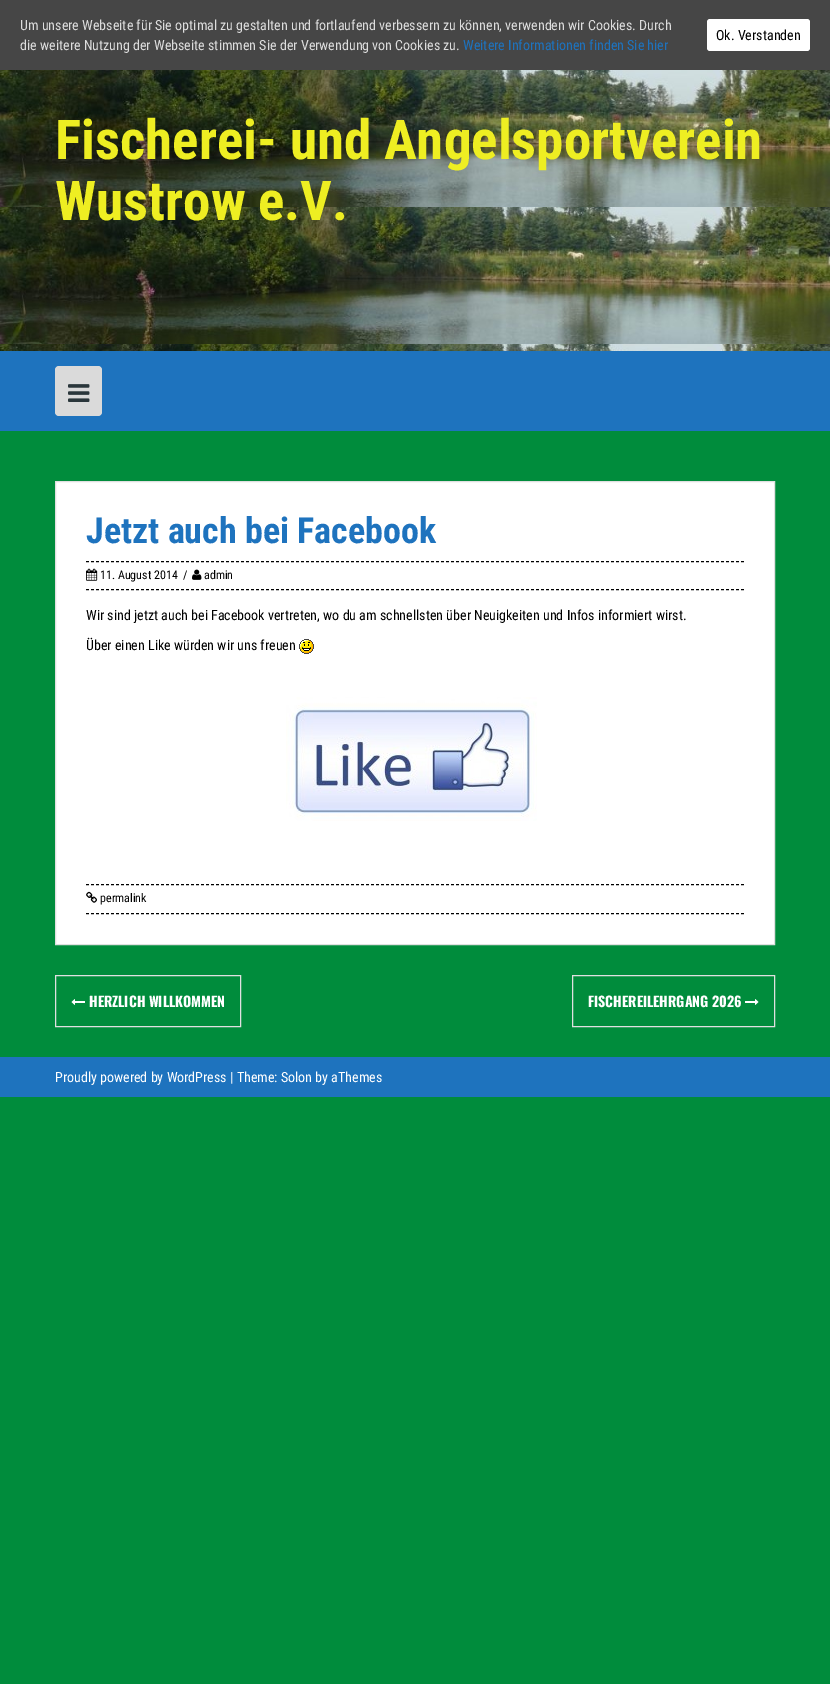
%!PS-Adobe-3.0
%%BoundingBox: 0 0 830 1684
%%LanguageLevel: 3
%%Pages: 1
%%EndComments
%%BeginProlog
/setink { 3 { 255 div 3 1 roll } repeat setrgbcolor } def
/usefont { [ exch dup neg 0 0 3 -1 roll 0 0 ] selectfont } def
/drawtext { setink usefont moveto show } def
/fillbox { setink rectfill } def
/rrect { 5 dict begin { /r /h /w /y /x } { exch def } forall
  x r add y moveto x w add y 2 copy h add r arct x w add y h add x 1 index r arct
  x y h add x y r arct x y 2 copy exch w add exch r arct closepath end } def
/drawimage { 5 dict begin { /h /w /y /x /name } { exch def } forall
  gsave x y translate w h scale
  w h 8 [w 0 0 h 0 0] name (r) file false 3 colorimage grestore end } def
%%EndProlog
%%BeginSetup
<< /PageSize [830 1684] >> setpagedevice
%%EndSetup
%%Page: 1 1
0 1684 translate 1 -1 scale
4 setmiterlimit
0 0 830 1684 0 140 60 fillbox
0 0 830 70 70 70 70 fillbox
(Um unsere Webseite für Sie optimal zu gestalten und fortlaufend verbessern zu können, verwenden wir Cookies. Durch) 20 30 /RobotoCondensed-Regular 14 221 221 221 drawtext
(die weitere Nutzung der Webseite stimmen Sie der Verwendung von Cookies zu.) 20 50 /RobotoCondensed-Regular 14 221 221 221 drawtext
(Weitere Informationen finden Sie hier) 463 50 /RobotoCondensed-Regular 14 30 115 190 drawtext
255 255 255 setink
707 19 103 32 3 rrect fill
(Ok. Verstanden) 716 40 /RobotoCondensed-Regular 14 0 0 0 drawtext
(assets/img1.rgb) 0 70 830 281 drawimage
(Fischerei- und Angelsportverein) 55 159 /RobotoCondensed-Bold 55 238 238 34 drawtext
(Wustrow e.V.) 55 220 /RobotoCondensed-Bold 55 238 238 34 drawtext
0 351 830 80 30 115 190 fillbox
218 218 218 setink
55 366 47 50 4 rrect fill
(assets/img2.rgb) 68 384 22 18 drawimage
255 255 255 setink
55.5 481.5 moveto 774.5 481.5 lineto 774.5 944.5 lineto 55.5 944.5 lineto closepath gsave fill grestore
224 224 224 setink
stroke
(Jetzt auch bei Facebook) 86 543 /RobotoCondensed-Bold 36 30 115 190 drawtext
0 0 0 setink
[3 2] 0 setdash
86 561.5 moveto 744 561.5 lineto stroke
86 589.5 moveto 744 589.5 lineto stroke
(assets/img3.rgb) 86 568 12 13 drawimage
(11. August 2014) 100 579 /RobotoCondensed-Regular 12 0 0 0 drawtext
(/) 183 579 /RobotoCondensed-Regular 12 0 0 0 drawtext
(assets/img4.rgb) 192 569 10 11 drawimage
(admin) 204 579 /RobotoCondensed-Regular 12 0 0 0 drawtext
(Wir sind jetzt auch bei Facebook vertreten, wo du am schnellsten über Neuigkeiten und Infos informiert wirst.) 86 620 /RobotoCondensed-Regular 14 0 0 0 drawtext
(Über einen Like würden wir uns freuen) 86 650 /RobotoCondensed-Regular 14 0 0 0 drawtext
(assets/img5.rgb) 299 639 15 15 drawimage
(assets/img6.rgb) 286 697 251 124 drawimage
86 884.5 moveto 744 884.5 lineto stroke
86 913.5 moveto 744 913.5 lineto stroke
(assets/img7.rgb) 86 891 11 12 drawimage
(permalink) 100 902 /RobotoCondensed-Regular 12 0 0 0 drawtext
224 224 224 setink
[] 0 setdash
55.5 975.5 185 51 rectstroke
(assets/img8.rgb) 71 999 14 6 drawimage
(HERZLICH WILLKOMMEN) 89 1007 /Oswald-Bold 14 255 255 255 drawtext
224 224 224 setink
572.5 975.5 202 51 rectstroke
(FISCHEREILEHRGANG 2026) 588 1007 /Oswald-Bold 14 255 255 255 drawtext
(assets/img9.rgb) 745 999 14 6 drawimage
0 1057 830 40 30 115 190 fillbox
(Proudly powered by WordPress | Theme: Solon by aThemes) 55 1082 /RobotoCondensed-Regular 14 255 255 255 drawtext
showpage
%%EOF
